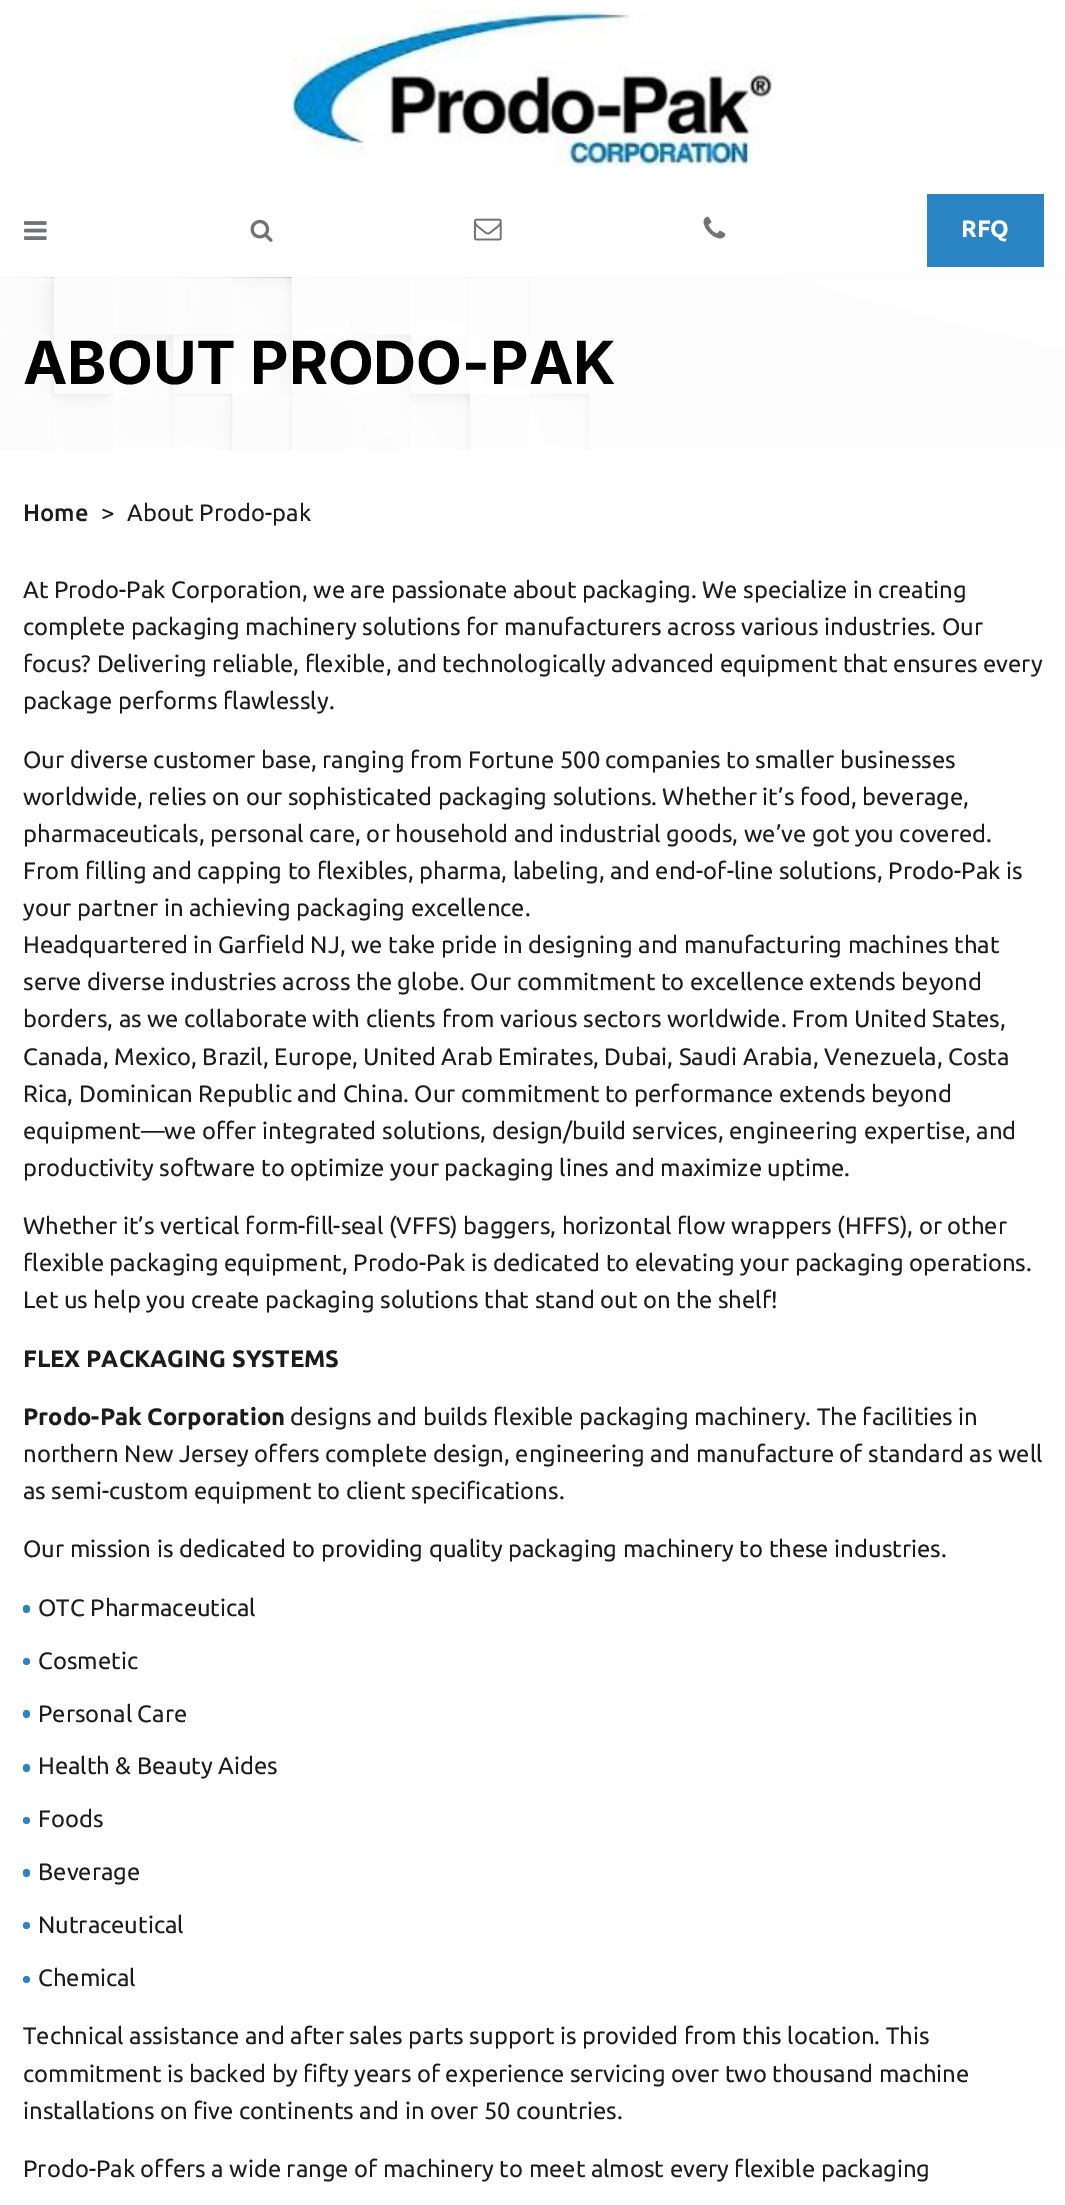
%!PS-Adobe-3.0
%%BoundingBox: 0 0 1065 2205
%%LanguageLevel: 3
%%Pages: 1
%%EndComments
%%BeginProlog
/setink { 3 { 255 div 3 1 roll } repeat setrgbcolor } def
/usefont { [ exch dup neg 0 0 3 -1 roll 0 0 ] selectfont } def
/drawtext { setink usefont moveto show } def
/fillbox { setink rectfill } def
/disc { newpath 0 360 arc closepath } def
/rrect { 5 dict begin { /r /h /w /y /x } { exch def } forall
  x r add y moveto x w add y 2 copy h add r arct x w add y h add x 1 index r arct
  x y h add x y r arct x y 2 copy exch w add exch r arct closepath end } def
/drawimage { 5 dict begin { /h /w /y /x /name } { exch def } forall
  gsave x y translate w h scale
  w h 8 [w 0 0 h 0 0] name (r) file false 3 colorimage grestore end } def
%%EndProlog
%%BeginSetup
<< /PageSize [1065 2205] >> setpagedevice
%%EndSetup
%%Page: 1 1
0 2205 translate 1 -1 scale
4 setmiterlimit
0 0 1065 2205 255 255 255 fillbox
(assets/img1.rgb) 292 10 481 157 drawimage
(assets/img2.rgb) 24 221 23 19 drawimage
(assets/img3.rgb) 250 219 23 23 drawimage
(assets/img4.rgb) 474 218 28 23 drawimage
(assets/img5.rgb) 703 216 23 23 drawimage
927 194 117 73 43 133 196 fillbox
(RFQ) 961 237 /Ubuntu-Bold 23.75 255 255 255 drawtext
(assets/img6.rgb) 0 277 1065 173 drawimage
(ABOUT PRODO-PAK) 23 384 /Inter-Bold 59.5 0 0 0 drawtext
(Home) 23 521 /Ubuntu-Medium 23.75 28 28 28 drawtext
(>) 101 521 /Ubuntu-Regular 23.75 28 28 28 drawtext
(About Prodo-pak) 127 521 /Ubuntu-Regular 23.75 28 28 28 drawtext
(At Prodo-Pak Corporation, we are passionate about packaging. We specialize in creating) 23 598 /Ubuntu-Regular 23.75 28 28 28 drawtext
(complete packaging machinery solutions for manufacturers across various industries. Our) 23 635 /Ubuntu-Regular 23.75 28 28 28 drawtext
(focus? Delivering reliable, flexible, and technologically advanced equipment that ensures every) 23 672 /Ubuntu-Regular 23.75 28 28 28 drawtext
(package performs flawlessly.) 23 709 /Ubuntu-Regular 23.75 28 28 28 drawtext
(Our diverse customer base, ranging from Fortune 500 companies to smaller businesses) 23 768 /Ubuntu-Regular 23.75 28 28 28 drawtext
(worldwide, relies on our sophisticated packaging solutions. Whether it’s food, beverage,) 23 805 /Ubuntu-Regular 23.75 28 28 28 drawtext
(pharmaceuticals, personal care, or household and industrial goods, we’ve got you covered.) 23 842 /Ubuntu-Regular 23.75 28 28 28 drawtext
(From filling and capping to flexibles, pharma, labeling, and end-of-line solutions, Prodo-Pak is) 23 879 /Ubuntu-Regular 23.75 28 28 28 drawtext
(your partner in achieving packaging excellence.) 23 916 /Ubuntu-Regular 23.75 28 28 28 drawtext
(Headquartered in Garfield NJ, we take pride in designing and manufacturing machines that) 23 953 /Ubuntu-Regular 23.75 28 28 28 drawtext
(serve diverse industries across the globe. Our commitment to excellence extends beyond) 23 990 /Ubuntu-Regular 23.75 28 28 28 drawtext
(borders, as we collaborate with clients from various sectors worldwide. From United States,) 23 1027 /Ubuntu-Regular 23.75 28 28 28 drawtext
(Canada, Mexico, Brazil, Europe, United Arab Emirates, Dubai, Saudi Arabia, Venezuela, Costa) 23 1065 /Ubuntu-Regular 23.75 28 28 28 drawtext
(Rica, Dominican Republic and China. Our commitment to performance extends beyond) 23 1102 /Ubuntu-Regular 23.75 28 28 28 drawtext
(equipment—we offer integrated solutions, design/build services, engineering expertise, and) 23 1139 /Ubuntu-Regular 23.75 28 28 28 drawtext
(productivity software to optimize your packaging lines and maximize uptime.) 23 1176 /Ubuntu-Regular 23.75 28 28 28 drawtext
(Whether it’s vertical form-fill-seal \(VFFS\) baggers, horizontal flow wrappers \(HFFS\), or other) 23 1234 /Ubuntu-Regular 23.75 28 28 28 drawtext
(flexible packaging equipment, Prodo-Pak is dedicated to elevating your packaging operations.) 23 1271 /Ubuntu-Regular 23.75 28 28 28 drawtext
(Let us help you create packaging solutions that stand out on the shelf!) 23 1308 /Ubuntu-Regular 23.75 28 28 28 drawtext
(FLEX PACKAGING SYSTEMS) 23 1367 /Ubuntu-Bold 23.75 28 28 28 drawtext
(Prodo-Pak Corporation) 23 1425 /Ubuntu-Bold 23.75 28 28 28 drawtext
(designs and builds flexible packaging machinery. The facilities in) 290 1425 /Ubuntu-Regular 23.75 28 28 28 drawtext
(northern New Jersey offers complete design, engineering and manufacture of standard as well) 23 1462 /Ubuntu-Regular 23.75 28 28 28 drawtext
(as semi-custom equipment to client specifications.) 23 1499 /Ubuntu-Regular 23.75 28 28 28 drawtext
(Our mission is dedicated to providing quality packaging machinery to these industries.) 23 1557 /Ubuntu-Regular 23.75 28 28 28 drawtext
43 133 196 setink
23 1605 7 8 3.5 rrect fill
(OTC Pharmaceutical) 38 1616 /Ubuntu-Regular 23.75 28 28 28 drawtext
43 133 196 setink
26.5 1661.5 3.5 disc fill
(Cosmetic) 38 1669 /Ubuntu-Regular 23.75 28 28 28 drawtext
43 133 196 setink
23 1710 7 8 3.5 rrect fill
(Personal Care) 38 1722 /Ubuntu-Regular 23.75 28 28 28 drawtext
43 133 196 setink
23 1764 7 8 3.5 rrect fill
(Health & Beauty Aides) 38 1774 /Ubuntu-Regular 23.75 28 28 28 drawtext
43 133 196 setink
26.5 1820.5 3.5 disc fill
(Foods) 38 1827 /Ubuntu-Regular 23.75 28 28 28 drawtext
43 133 196 setink
23 1869 7 8 3.5 rrect fill
(Beverage) 38 1880 /Ubuntu-Regular 23.75 28 28 28 drawtext
43 133 196 setink
26.5 1925.5 3.5 disc fill
(Nutraceutical) 38 1933 /Ubuntu-Regular 23.75 28 28 28 drawtext
43 133 196 setink
26.5 1979.5 3.5 disc fill
(Chemical) 38 1986 /Ubuntu-Regular 23.75 28 28 28 drawtext
(Technical assistance and after sales parts support is provided from this location. This) 23 2044 /Ubuntu-Regular 23.75 28 28 28 drawtext
(commitment is backed by fifty years of experience servicing over two thousand machine) 23 2082 /Ubuntu-Regular 23.75 28 28 28 drawtext
(installations on five continents and in over 50 countries.) 23 2119 /Ubuntu-Regular 23.75 28 28 28 drawtext
(Prodo-Pak offers a wide range of machinery to meet almost every flexible packaging) 23 2177 /Ubuntu-Regular 23.75 28 28 28 drawtext
showpage
%%EOF
